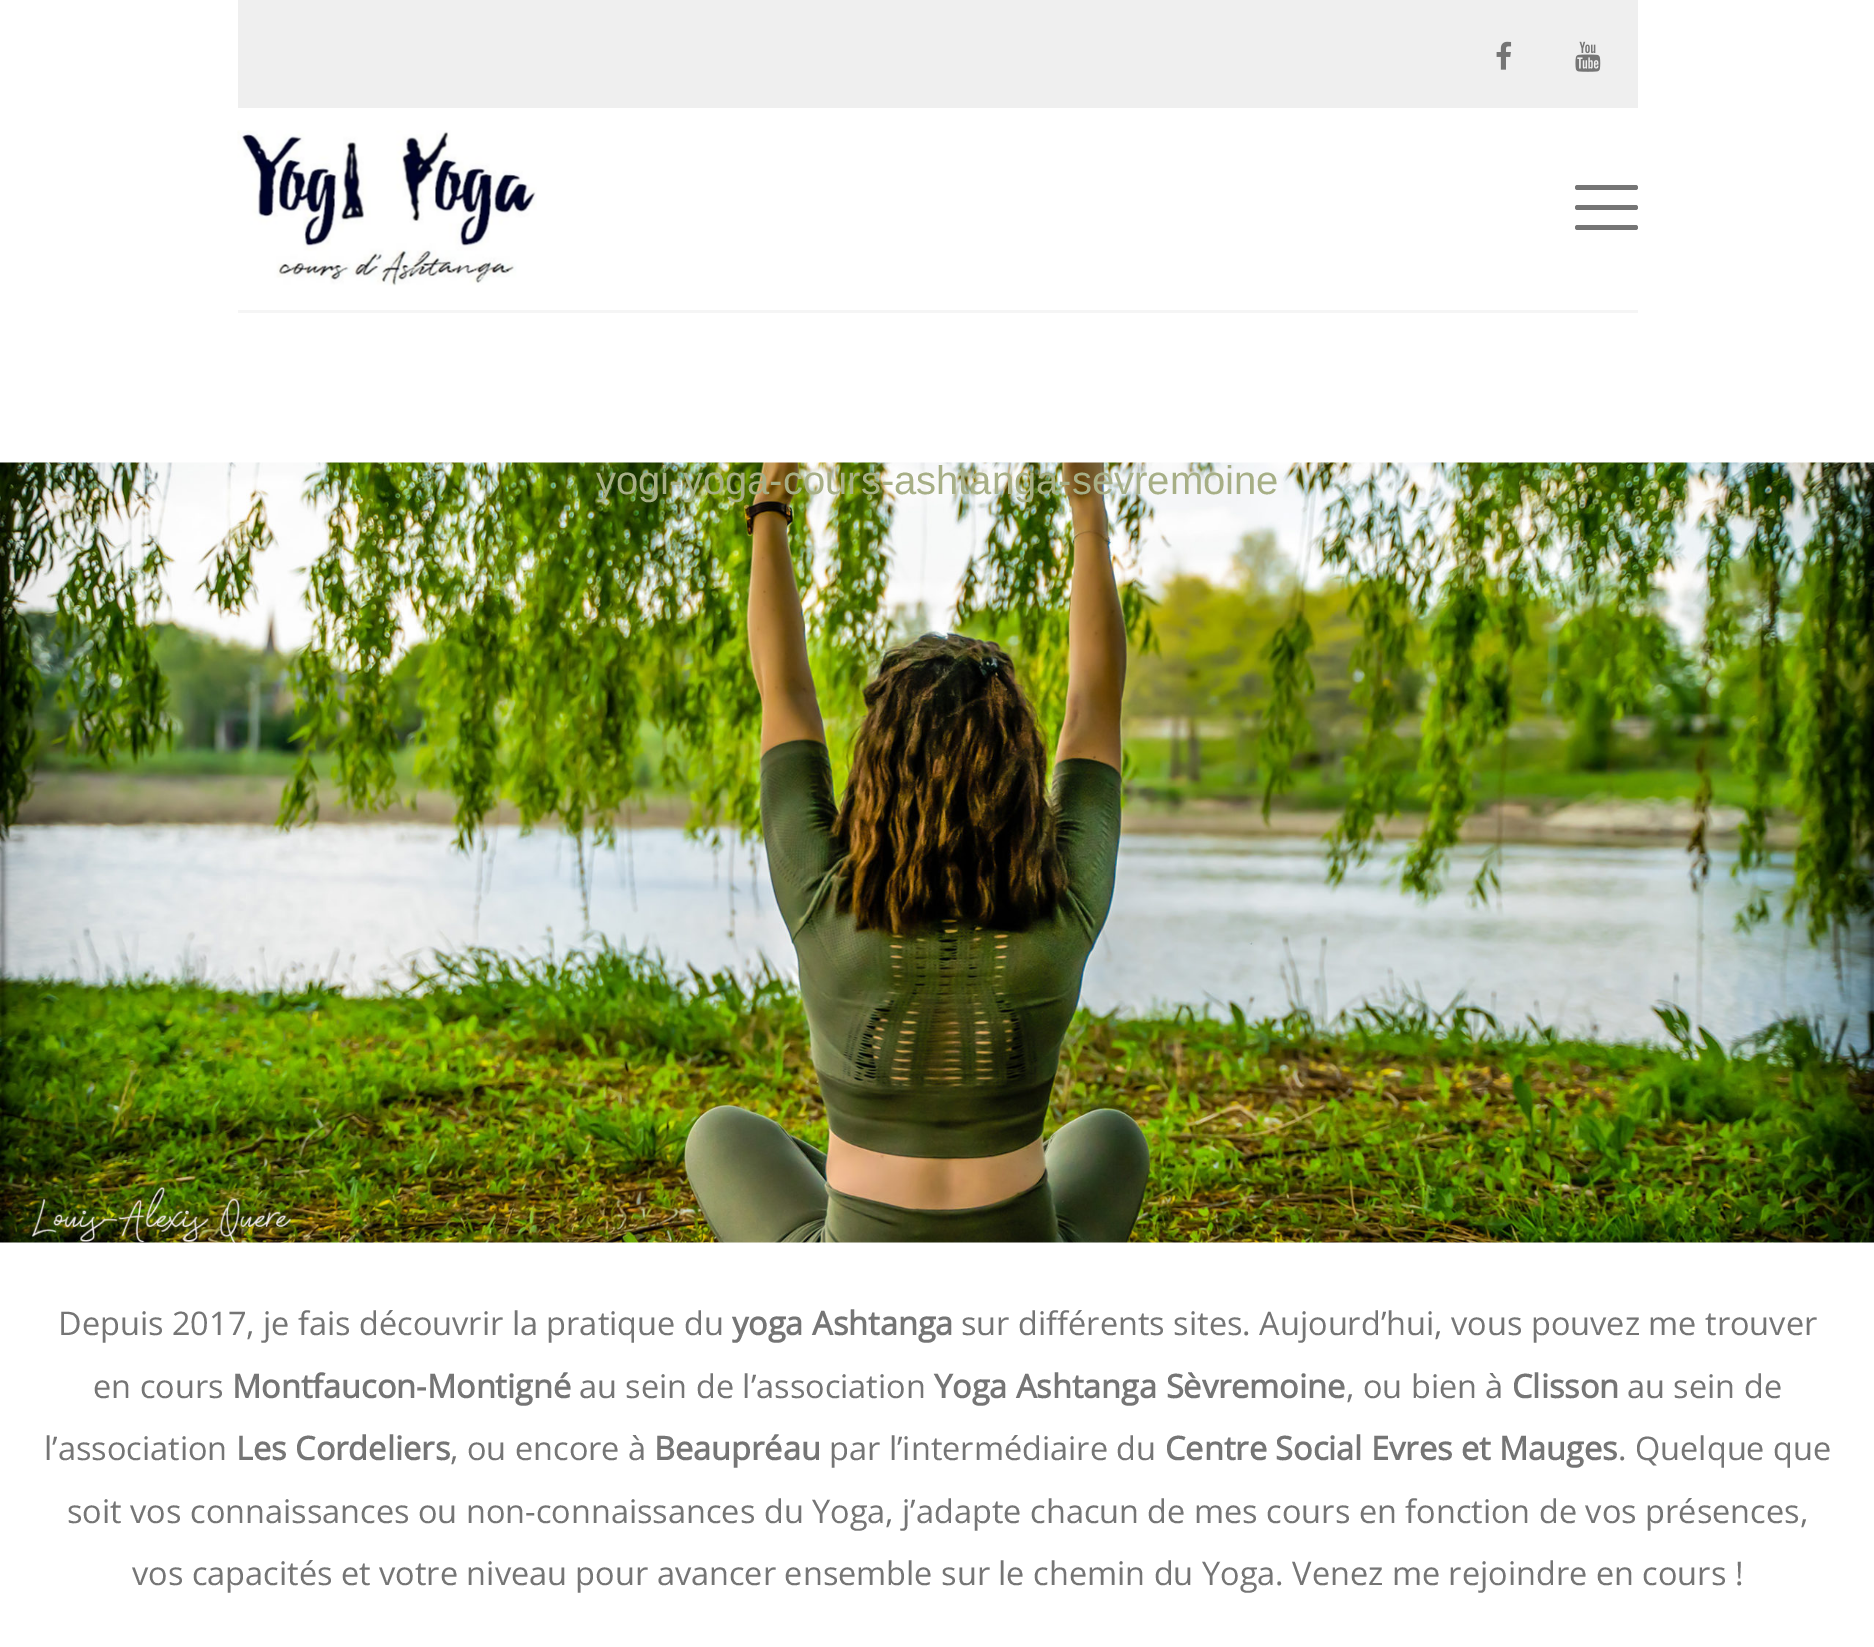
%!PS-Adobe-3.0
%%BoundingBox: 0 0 1874 1647
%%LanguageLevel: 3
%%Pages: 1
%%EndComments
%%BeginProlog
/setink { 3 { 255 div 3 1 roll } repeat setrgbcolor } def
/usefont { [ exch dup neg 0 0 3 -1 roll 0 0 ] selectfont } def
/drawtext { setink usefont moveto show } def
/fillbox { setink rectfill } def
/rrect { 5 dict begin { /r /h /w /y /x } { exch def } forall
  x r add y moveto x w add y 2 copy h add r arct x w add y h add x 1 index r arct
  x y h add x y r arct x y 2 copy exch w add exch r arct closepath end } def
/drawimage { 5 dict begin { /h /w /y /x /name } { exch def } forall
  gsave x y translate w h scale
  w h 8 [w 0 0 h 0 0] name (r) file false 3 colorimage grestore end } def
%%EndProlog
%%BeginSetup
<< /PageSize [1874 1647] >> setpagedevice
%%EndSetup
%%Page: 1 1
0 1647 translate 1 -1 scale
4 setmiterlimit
0 0 1874 1647 255 255 255 fillbox
238 0 1400 108 239 239 239 fillbox
(assets/img1.rgb) 1496 41 16 29 drawimage
(assets/img2.rgb) 1575 41 26 31 drawimage
238 310 1400 3 245 245 245 fillbox
(assets/img3.rgb) 237 130 300 156 drawimage
117 117 117 setink
1575 185 63 5 2.5 rrect fill
1575 205 63 5 2.5 rrect fill
1575 225 63 5 2.5 rrect fill
(assets/img4.rgb) 0 462 1874 781 drawimage
(yogi-yoga-cours-ashtanga-sevremoine) 596 494 /LiberationSans-Regular 40 167 175 134 drawtext
(Depuis 2017, je fais découvrir la pratique du) 58 1335 /OpenSans-Regular 32.5 117 117 117 drawtext
(yoga Ashtanga) 732 1335 /OpenSans-Bold 32.5 117 117 117 drawtext
(sur différents sites. Aujourd’hui, vous pouvez me trouver) 961 1335 /OpenSans-Regular 32.5 117 117 117 drawtext
(en cours) 93 1398 /OpenSans-Regular 32.5 117 117 117 drawtext
(Montfaucon-Montigné) 232 1398 /OpenSans-Bold 32.5 117 117 117 drawtext
(au sein de l’association) 579 1398 /OpenSans-Regular 32.5 117 117 117 drawtext
(Yoga Ashtanga Sèvremoine) 934 1398 /OpenSans-Bold 32.5 117 117 117 drawtext
(, ou bien à) 1346 1398 /OpenSans-Regular 32.5 117 117 117 drawtext
(Clisson) 1512 1398 /OpenSans-Bold 32.5 117 117 117 drawtext
(au sein de) 1627 1398 /OpenSans-Regular 32.5 117 117 117 drawtext
(l’association) 44 1460 /OpenSans-Regular 32.5 117 117 117 drawtext
(Les Cordeliers) 236 1460 /OpenSans-Bold 32.5 117 117 117 drawtext
(, ou encore à) 450 1460 /OpenSans-Regular 32.5 117 117 117 drawtext
(Beaupréau) 654 1460 /OpenSans-Bold 32.5 117 117 117 drawtext
(par l’intermédiaire du) 829 1460 /OpenSans-Regular 32.5 117 117 117 drawtext
(Centre Social Evres et Mauges) 1165 1460 /OpenSans-Bold 32.5 117 117 117 drawtext
(. Quelque que) 1618 1460 /OpenSans-Regular 32.5 117 117 117 drawtext
(soit vos connaissances ou non-connaissances du Yoga, j’adapte chacun de mes cours en fonction de vos présences,) 67 1523 /OpenSans-Regular 32.5 117 117 117 drawtext
(vos capacités et votre niveau pour avancer ensemble sur le chemin du Yoga. Venez me rejoindre en cours !) 132 1585 /OpenSans-Regular 32.5 117 117 117 drawtext
showpage
%%EOF
